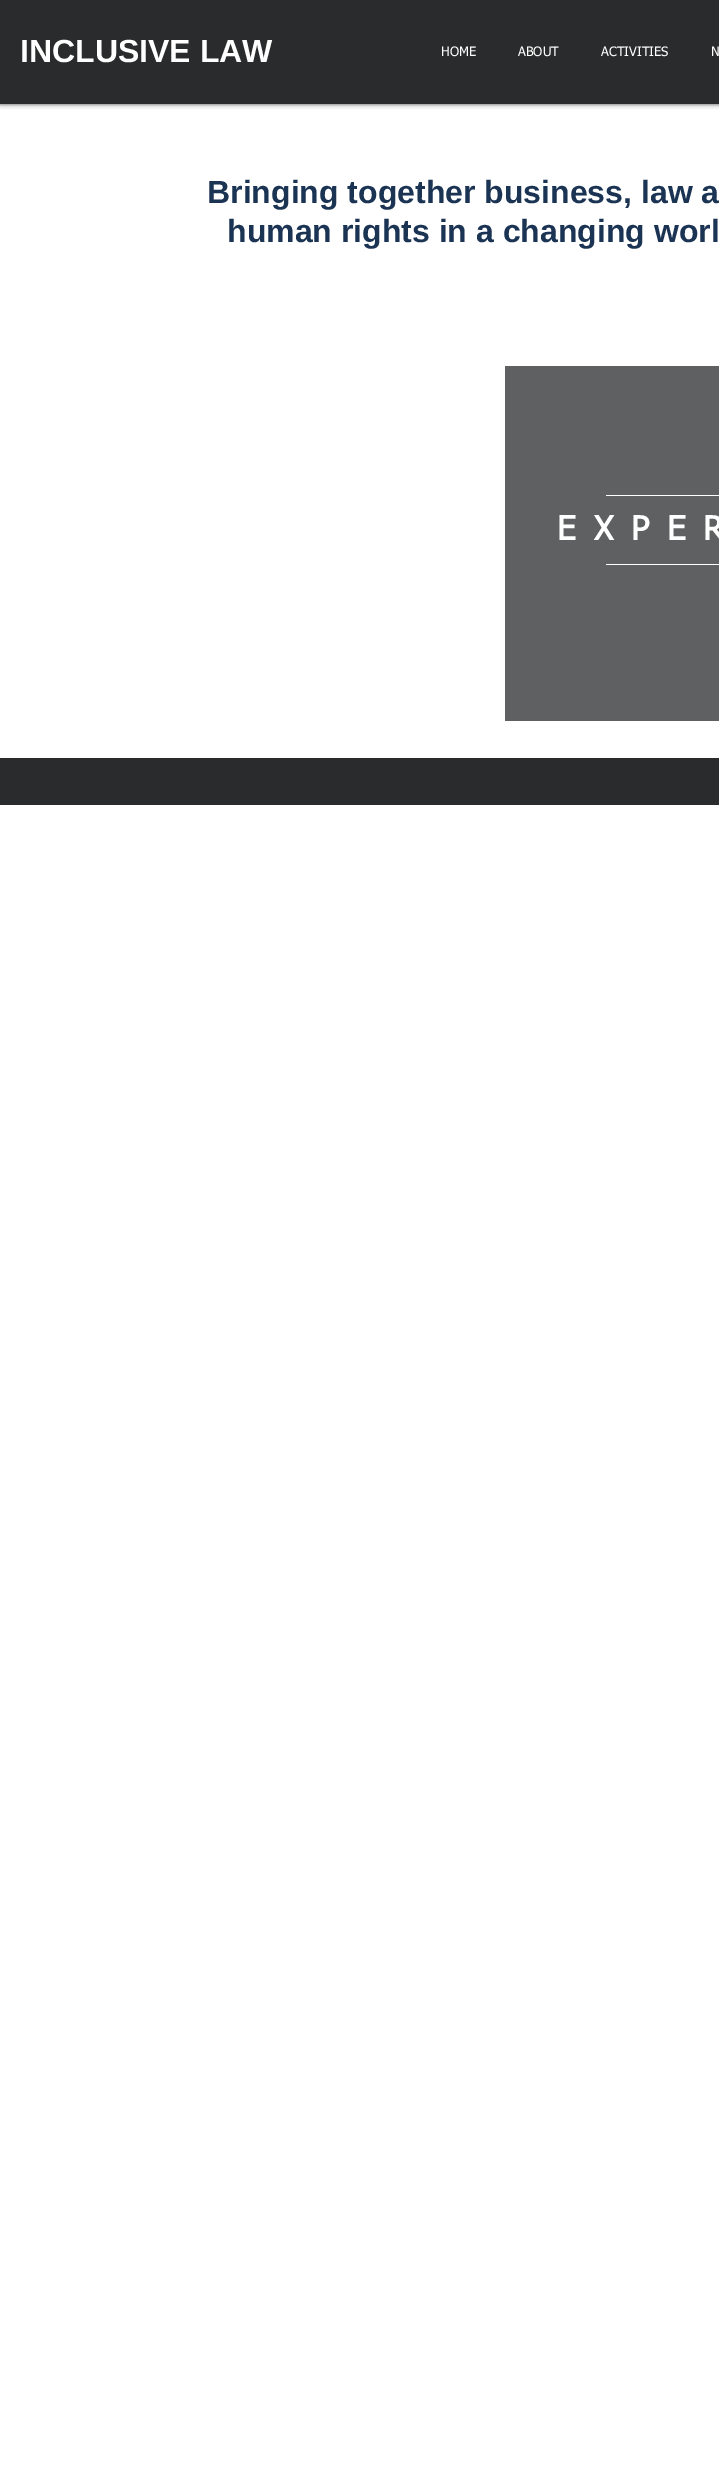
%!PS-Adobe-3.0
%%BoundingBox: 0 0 719 2490
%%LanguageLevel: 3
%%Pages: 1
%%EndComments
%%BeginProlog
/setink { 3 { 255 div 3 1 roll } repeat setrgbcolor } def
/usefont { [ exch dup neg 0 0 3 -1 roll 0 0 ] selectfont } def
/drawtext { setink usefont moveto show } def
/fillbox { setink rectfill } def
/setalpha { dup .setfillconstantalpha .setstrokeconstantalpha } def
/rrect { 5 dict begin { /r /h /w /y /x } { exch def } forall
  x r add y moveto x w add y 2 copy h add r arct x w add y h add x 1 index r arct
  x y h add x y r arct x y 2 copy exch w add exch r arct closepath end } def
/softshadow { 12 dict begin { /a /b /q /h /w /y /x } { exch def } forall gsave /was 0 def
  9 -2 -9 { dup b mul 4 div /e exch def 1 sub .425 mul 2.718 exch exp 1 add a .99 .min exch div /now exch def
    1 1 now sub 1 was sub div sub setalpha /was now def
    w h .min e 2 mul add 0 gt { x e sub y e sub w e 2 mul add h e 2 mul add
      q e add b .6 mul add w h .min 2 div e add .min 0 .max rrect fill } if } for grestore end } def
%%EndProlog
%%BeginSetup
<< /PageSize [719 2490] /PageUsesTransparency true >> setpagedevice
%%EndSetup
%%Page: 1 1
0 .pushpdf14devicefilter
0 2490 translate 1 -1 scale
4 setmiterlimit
0 0 719 2490 255 255 255 fillbox
0 0 0 setink
0 0 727 104 0 2.5 0.7 softshadow
0 0 719 104 42 43 44 fillbox
(INCLUSIVE LAW) 20 62 /LiberationSans-Bold 32 255 255 255 drawtext
(HOME) 441 56 /tahoma-Regular 13 255 255 255 drawtext
(ABOUT) 518 56 /tahoma-Regular 13 255 255 255 drawtext
(ACTIVITIES) 601 56 /tahoma-Regular 13 255 255 255 drawtext
(N) 711 56 /tahoma-Regular 13 255 255 255 drawtext
(Bringing together business, law a) 207 203 /LiberationSans-Bold 32 27 52 84 drawtext
(human rights in a changing worl) 227 242 /LiberationSans-Bold 32 27 52 84 drawtext
505 366 214 355 95 96 97 fillbox
606 495 113 1 255 255 255 fillbox
/tahoma-Bold 33 usefont
557 540 moveto 18 0 (EXPER) ashow
606 564 113 1 255 255 255 fillbox
0 758 719 47 42 43 44 fillbox
.poppdf14devicefilter showpage
%%EOF
